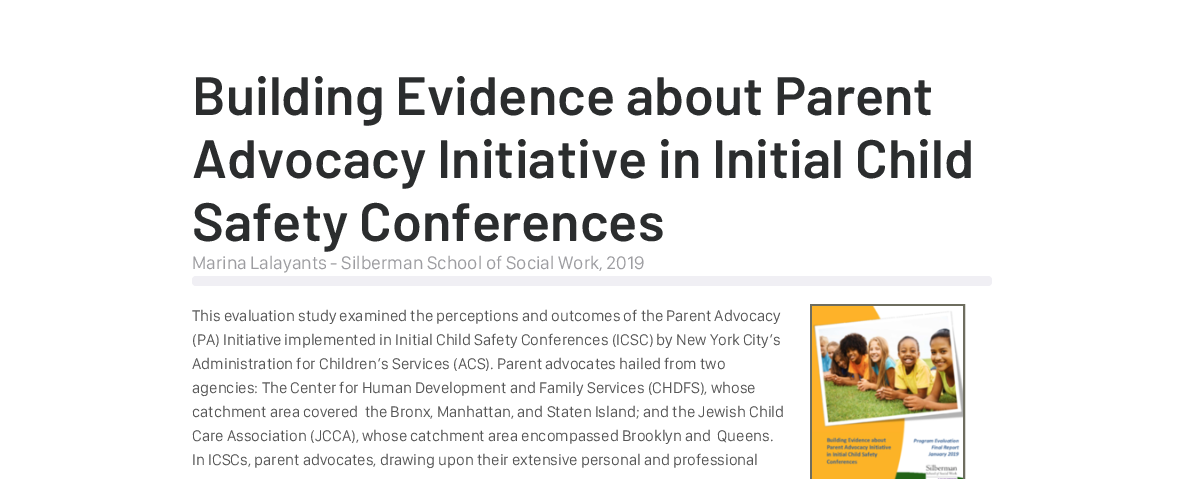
%!PS-Adobe-3.0
%%BoundingBox: 0 0 1183 479
%%LanguageLevel: 3
%%Pages: 1
%%EndComments
%%BeginProlog
/setink { 3 { 255 div 3 1 roll } repeat setrgbcolor } def
/usefont { [ exch dup neg 0 0 3 -1 roll 0 0 ] selectfont } def
/drawtext { setink usefont moveto show } def
/fillbox { setink rectfill } def
/rrect { 5 dict begin { /r /h /w /y /x } { exch def } forall
  x r add y moveto x w add y 2 copy h add r arct x w add y h add x 1 index r arct
  x y h add x y r arct x y 2 copy exch w add exch r arct closepath end } def
/drawimage { 5 dict begin { /h /w /y /x /name } { exch def } forall
  gsave x y translate w h scale
  w h 8 [w 0 0 h 0 0] name (r) file false 3 colorimage grestore end } def
%%EndProlog
%%BeginSetup
<< /PageSize [1183 479] >> setpagedevice
%%EndSetup
%%Page: 1 1
0 479 translate 1 -1 scale
4 setmiterlimit
0 0 1183 479 255 255 255 fillbox
(Building Evidence about Parent) 192 115 /Barlow-SemiBold 54 43 45 46 drawtext
(Advocacy Initiative in Initial Child) 192 178 /Barlow-SemiBold 54 43 45 46 drawtext
(Safety Conferences) 192 241 /Barlow-SemiBold 54 43 45 46 drawtext
(Marina Lalayants - Silberman School of Social Work, 2019) 192 269 /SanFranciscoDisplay-Regular 18.75 157 157 161 drawtext
240 239 244 setink
192 276 800 10 4 rrect fill
(This evaluation study examined the perceptions and outcomes of the Parent Advocacy) 192 321 /SanFranciscoDisplay-Regular 16 87 87 87 drawtext
(\(PA\) Initiative implemented in Initial Child Safety Conferences \(ICSC\) by New York City’s) 192 345 /SanFranciscoDisplay-Regular 16 87 87 87 drawtext
(Administration for Children’s Services \(ACS\). Parent advocates hailed from two) 192 369 /SanFranciscoDisplay-Regular 16 87 87 87 drawtext
(agencies: The Center for Human Development and Family Services \(CHDFS\), whose) 192 393 /SanFranciscoDisplay-Regular 16 87 87 87 drawtext
(catchment area covered  the Bronx, Manhattan, and Staten Island; and the Jewish Child) 192 417 /SanFranciscoDisplay-Regular 16 87 87 87 drawtext
(Care Association \(JCCA\), whose catchment area encompassed Brooklyn and  Queens.) 192 441 /SanFranciscoDisplay-Regular 16 87 87 87 drawtext
(In ICSCs, parent advocates, drawing upon their extensive personal and professional) 192 465 /SanFranciscoDisplay-Regular 16 87 87 87 drawtext
110 109 95 setink
2 setlinewidth
811 305 153 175 rectstroke
(assets/img1.rgb) 812 306 151 173 drawimage
showpage
%%EOF
